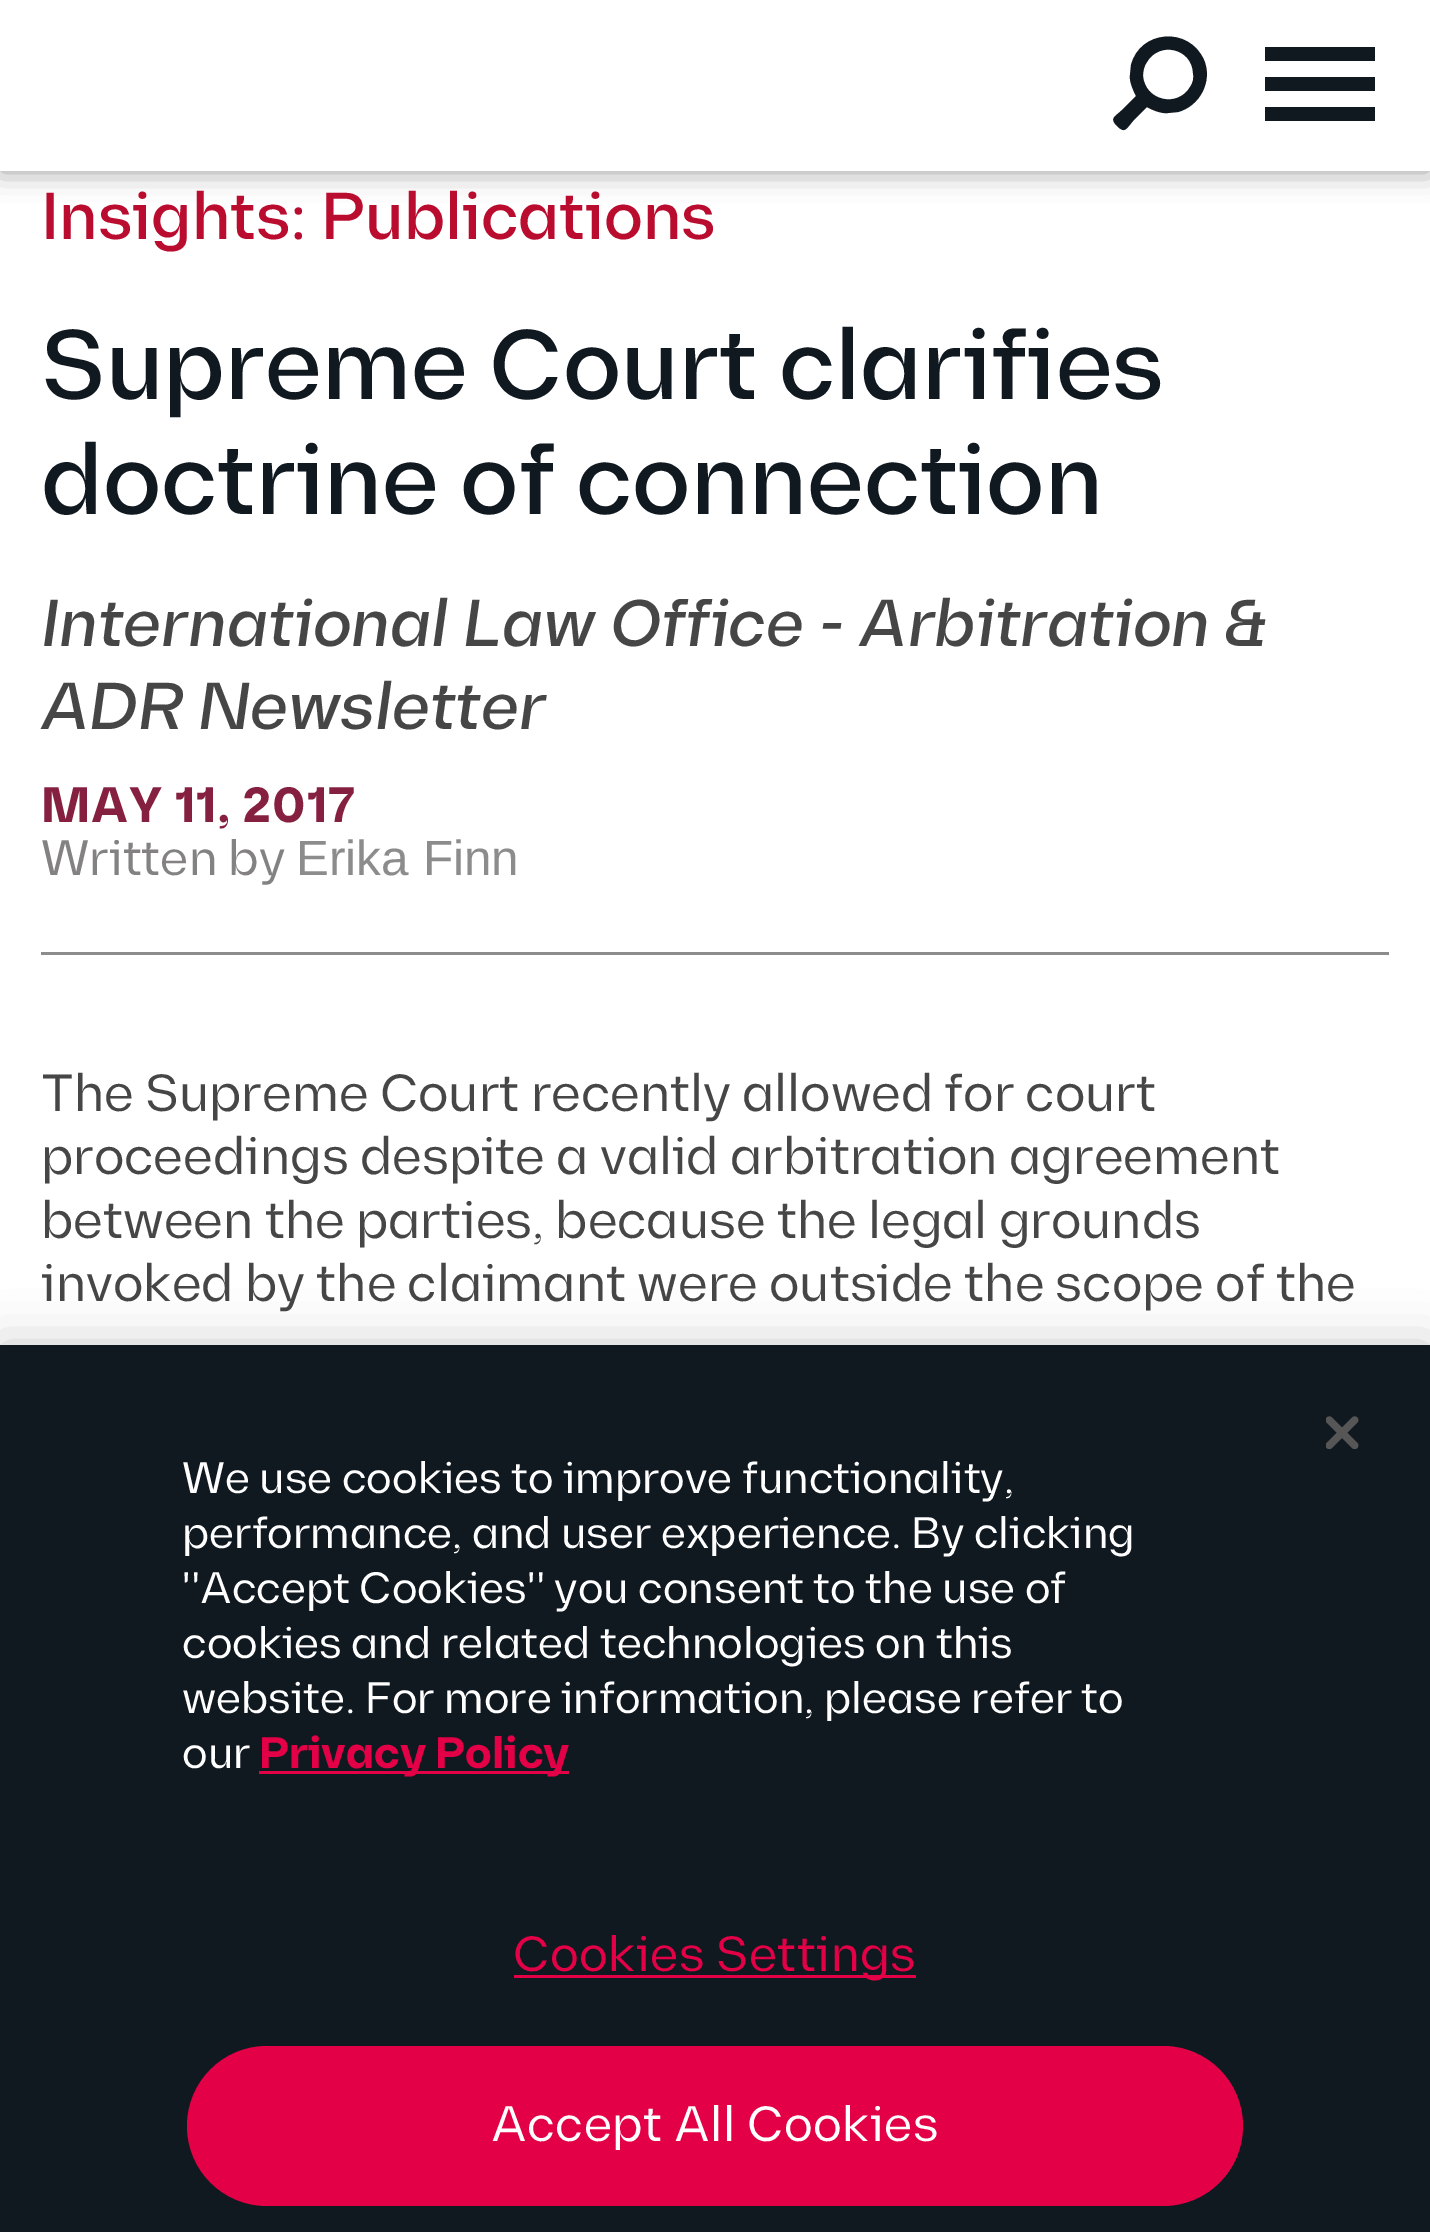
%!PS-Adobe-3.0
%%BoundingBox: 0 0 1430 2232
%%LanguageLevel: 3
%%Pages: 1
%%EndComments
%%BeginProlog
/setink { 3 { 255 div 3 1 roll } repeat setrgbcolor } def
/usefont { [ exch dup neg 0 0 3 -1 roll 0 0 ] selectfont } def
/drawtext { setink usefont moveto show } def
/fillbox { setink rectfill } def
/setalpha { dup .setfillconstantalpha .setstrokeconstantalpha } def
/rrect { 5 dict begin { /r /h /w /y /x } { exch def } forall
  x r add y moveto x w add y 2 copy h add r arct x w add y h add x 1 index r arct
  x y h add x y r arct x y 2 copy exch w add exch r arct closepath end } def
/softshadow { 12 dict begin { /a /b /q /h /w /y /x } { exch def } forall gsave /was 0 def
  9 -2 -9 { dup b mul 4 div /e exch def 1 sub .425 mul 2.718 exch exp 1 add a .99 .min exch div /now exch def
    1 1 now sub 1 was sub div sub setalpha /was now def
    w h .min e 2 mul add 0 gt { x e sub y e sub w e 2 mul add h e 2 mul add
      q e add b .6 mul add w h .min 2 div e add .min 0 .max rrect fill } if } for grestore end } def
/drawimage { 5 dict begin { /h /w /y /x /name } { exch def } forall
  gsave x y translate w h scale
  w h 8 [w 0 0 h 0 0] name (r) file false 3 colorimage grestore end } def
%%EndProlog
%%BeginSetup
<< /PageSize [1430 2232] /PageUsesTransparency true >> setpagedevice
%%EndSetup
%%Page: 1 1
0 .pushpdf14devicefilter
0 2232 translate 1 -1 scale
4 setmiterlimit
0 0 1430 2232 255 255 255 fillbox
0 0 0 setink
0 0 1430 171 0 14 0.4 softshadow
0 0 1430 171 255 255 255 fillbox
16 24 32 setink
1204 60 moveto 1213 81 1200 106 1178 112 curveto 1168 113 lineto 1162 114 1152 110 1147 107 curveto 1133 121 lineto 1126 129 1125 134 1117 126 curveto 1109 118 1115 117 1122 110 curveto 1136 96 lineto 1133 90 1129 81 1130 75 curveto 1131 65 lineto 1140 30 1189 26 1204 60 curveto closepath 1190 87 moveto 1193 83 1194 78 1193 73 curveto 1192 48 1159 41 1147 62 curveto 1144 66 1143 71 1143 76 curveto 1145 101 1178 108 1190 87 curveto closepath fill
1265 77 110 14 16 24 32 fillbox
1265 47 110 14 16 24 32 fillbox
1265 107 110 14 16 24 32 fillbox
(Insights: Publications) 41 239 /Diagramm-Medium 66 186 12 47 drawtext
(Supreme Court clarifies) 41 399 /Diagramm-Medium 99 16 24 32 drawtext
(doctrine of connection) 41 514 /Diagramm-Medium 99 16 24 32 drawtext
(International Law Office - Arbitration &) 41 646 /Diagramm-MediumItalic 66 70 70 70 drawtext
(ADR Newsletter) 41 729 /Diagramm-MediumItalic 66 70 70 70 drawtext
41 952 1348 3 140 140 140 fillbox
/Diagramm-Bold 49.5 usefont
134 32 65 setink
41 822 moveto 1 0 (MAY 11, 2017) ashow
(Written by) 41 875 /Diagramm-Regular 49.5 131 129 129 drawtext
(Erika Finn) 296 875 /LiberationSans-Regular 49.5 140 140 140 drawtext
(The Supreme Court recently allowed for court) 41 1111 /Diagramm-Regular 52.25 70 70 70 drawtext
(proceedings despite a valid arbitration agreement) 41 1174 /Diagramm-Regular 52.25 70 70 70 drawtext
(between the parties, because the legal grounds) 41 1238 /Diagramm-Regular 52.25 70 70 70 drawtext
(invoked by the claimant were outside the scope of the) 41 1301 /Diagramm-Regular 52.25 70 70 70 drawtext
0 0 0 setink
0 1345 1430 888 0 25 0.2 softshadow
0 1345 1430 887 16 24 32 fillbox
(assets/img1.rgb) 1326 1416 33 33 drawimage
(We use cookies to improve functionality,) 182 1493 /Diagramm-Regular 44 255 255 255 drawtext
(performance, and user experience. By clicking) 182 1548 /Diagramm-Regular 44 255 255 255 drawtext
("Accept Cookies" you consent to the use of) 182 1603 /Diagramm-Regular 44 255 255 255 drawtext
(cookies and related technologies on this) 182 1658 /Diagramm-Regular 44 255 255 255 drawtext
(website. For more information, please refer to) 182 1713 /Diagramm-Regular 44 255 255 255 drawtext
(our) 182 1768 /Diagramm-Regular 44 255 255 255 drawtext
259 1771 310 3 228 0 70 fillbox
(Privacy Policy) 259 1768 /Diagramm-Bold 44 228 0 70 drawtext
514 1975 402 3 228 0 70 fillbox
/Diagramm-Regular 49.5 usefont
513 1971 moveto 0.5 0 (Cookies Settings) ashow
187 2046 1056 160 80 rrect fill
255 255 255 setink
491 2141 moveto 0.5 0 (Accept All Cookies) ashow
.poppdf14devicefilter showpage
%%EOF
